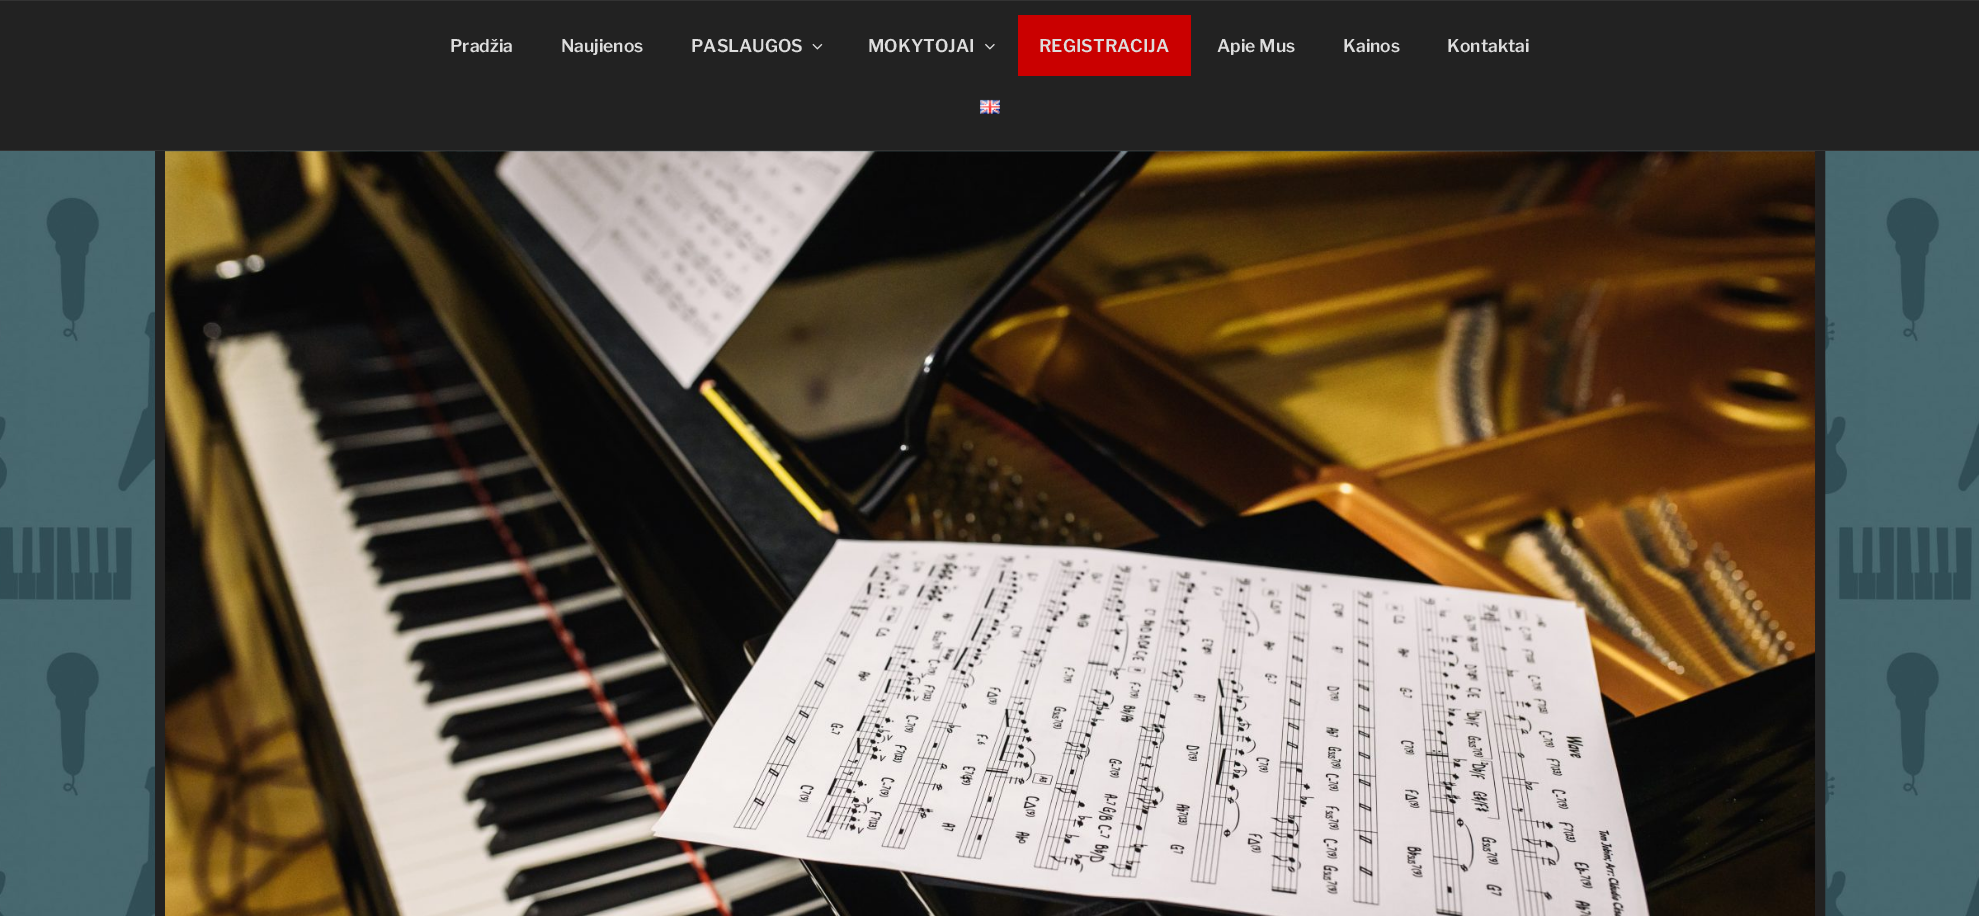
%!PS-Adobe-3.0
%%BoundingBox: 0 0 1979 916
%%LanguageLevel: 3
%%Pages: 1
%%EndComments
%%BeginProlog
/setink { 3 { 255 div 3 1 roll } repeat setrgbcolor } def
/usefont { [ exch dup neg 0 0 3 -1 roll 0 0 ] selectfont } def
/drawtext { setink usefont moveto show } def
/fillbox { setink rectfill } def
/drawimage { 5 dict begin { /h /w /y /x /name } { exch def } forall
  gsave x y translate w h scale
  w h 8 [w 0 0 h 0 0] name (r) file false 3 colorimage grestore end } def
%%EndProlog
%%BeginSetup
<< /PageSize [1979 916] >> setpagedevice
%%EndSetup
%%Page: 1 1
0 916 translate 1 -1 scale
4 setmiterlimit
0 0 1979 916 255 255 255 fillbox
(assets/img1.rgb) 0 151 1979 765 drawimage
34 34 34 setink
10 setlinewidth
160 146 1660 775 rectstroke
0 1 1979 149 34 34 34 fillbox
0 0 1979 1 51 51 51 fillbox
0 150 1979 1 51 51 51 fillbox
(Pradžia) 450 52 /LibreFranklin-SemiBold 17.5 221 221 221 drawtext
(Naujienos) 561 52 /LibreFranklin-SemiBold 17.5 221 221 221 drawtext
(PASLAUGOS) 691 52 /LibreFranklin-SemiBold 17.5 221 221 221 drawtext
(assets/img2.rgb) 812 43 11 7 drawimage
(MOKYTOJAI) 868 52 /LibreFranklin-SemiBold 17.5 221 221 221 drawtext
(assets/img3.rgb) 985 43 10 7 drawimage
1018 15 173 61 202 0 0 fillbox
(REGISTRACIJA) 1039 52 /LibreFranklin-SemiBold 17.5 221 221 221 drawtext
(Apie Mus) 1217 52 /LibreFranklin-SemiBold 17.5 221 221 221 drawtext
(Kainos) 1343 52 /LibreFranklin-SemiBold 17.5 221 221 221 drawtext
(Kontaktai) 1447 52 /LibreFranklin-SemiBold 17.5 221 221 221 drawtext
(assets/img4.rgb) 980 99 20 15 drawimage
(assets/img5.rgb) 165 151 1650 765 drawimage
showpage
%%EOF
